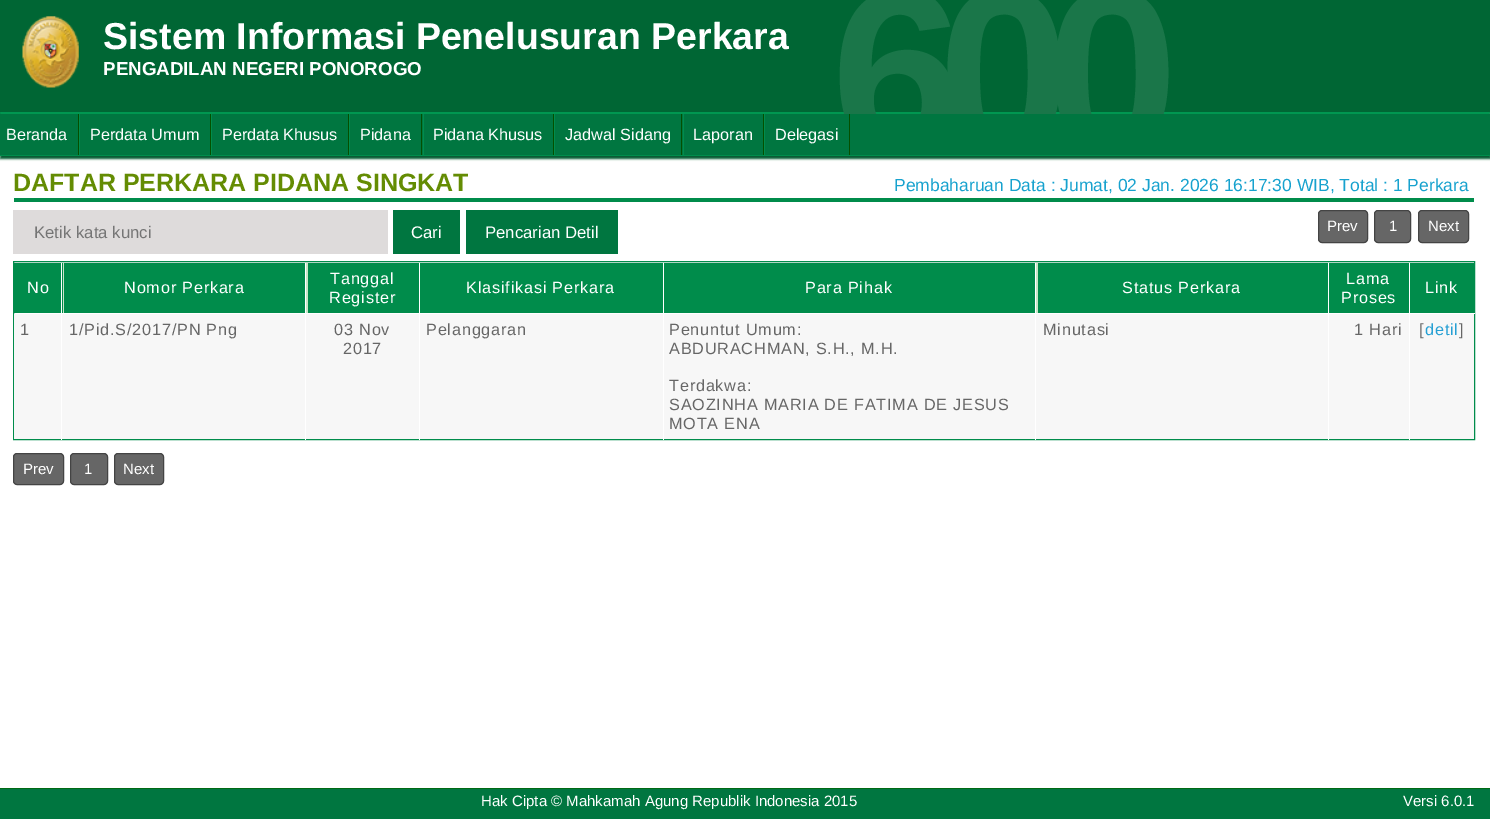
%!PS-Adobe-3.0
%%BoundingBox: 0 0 1490 819
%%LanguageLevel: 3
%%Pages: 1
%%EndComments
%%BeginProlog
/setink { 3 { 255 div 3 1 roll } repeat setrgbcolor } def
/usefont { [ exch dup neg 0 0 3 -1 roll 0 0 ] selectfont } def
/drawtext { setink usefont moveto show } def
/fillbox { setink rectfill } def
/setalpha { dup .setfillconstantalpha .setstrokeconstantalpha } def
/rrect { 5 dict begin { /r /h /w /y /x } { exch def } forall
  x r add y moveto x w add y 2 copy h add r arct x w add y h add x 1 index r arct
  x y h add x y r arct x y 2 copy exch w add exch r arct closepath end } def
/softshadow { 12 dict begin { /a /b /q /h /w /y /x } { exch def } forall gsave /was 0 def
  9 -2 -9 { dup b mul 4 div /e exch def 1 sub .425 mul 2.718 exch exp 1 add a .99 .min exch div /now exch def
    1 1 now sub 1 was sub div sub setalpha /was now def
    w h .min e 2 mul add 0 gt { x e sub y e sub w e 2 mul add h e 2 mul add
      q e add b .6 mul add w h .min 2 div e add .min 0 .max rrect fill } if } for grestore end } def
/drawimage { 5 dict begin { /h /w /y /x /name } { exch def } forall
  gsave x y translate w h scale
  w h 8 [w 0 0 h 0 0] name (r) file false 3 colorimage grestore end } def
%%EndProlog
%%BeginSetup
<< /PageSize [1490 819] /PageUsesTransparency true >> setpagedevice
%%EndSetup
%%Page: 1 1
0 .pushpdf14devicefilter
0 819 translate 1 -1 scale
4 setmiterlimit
0 0 1490 819 255 255 255 fillbox
91 91 91 setink
0 0 1490 113 0 6 1 softshadow
0 0 1490 113 0 102 52 fillbox
(assets/img1.rgb) 22 16 57 72 drawimage
(Sistem Informasi Penelusuran Perkara) 103 49 /LiberationSans-Bold 37.5 255 255 255 drawtext
(PENGADILAN NEGERI PONOROGO) 103 75 /LiberationSans-Bold 18.75 255 255 255 drawtext
0 88 47 setink
0 115 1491 44 0 1 1 softshadow
0 151 81 setink
0 112 moveto 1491 112 lineto 1489 114 lineto 1 114 lineto closepath fill
gsave
806 0 372 114 rectclip
/LiberationSans-Bold 238 usefont
26 118 73 setink
831 155 moveto -25 0 (600) ashow
grestore
80 114 1409 41 0 118 64 fillbox
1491 112 moveto 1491 156 lineto 1489 155 lineto 1489 114 lineto closepath fill
0 141 76 setink
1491 156 moveto 0 156 lineto 1 155 lineto 1489 155 lineto closepath fill
0 113 1 43 0 141 76 fillbox
0 114 78 41 0 118 64 fillbox
78 114 1 41 4 80 0 fillbox
(Beranda) 6 140 /LiberationSans-Regular 16.25 255 255 255 drawtext
210 114 1 41 4 80 0 fillbox
79 114 1 41 0 141 76 fillbox
(Perdata Umum) 90 140 /LiberationSans-Regular 16.25 255 255 255 drawtext
348 114 1 41 4 80 0 fillbox
211 114 1 41 0 141 76 fillbox
(Perdata Khusus) 222 140 /LiberationSans-Regular 16.25 255 255 255 drawtext
421 114 1 41 4 80 0 fillbox
349 114 1 41 0 141 76 fillbox
(Pidana) 360 140 /LiberationSans-Regular 16.25 255 255 255 drawtext
553 114 1 41 4 80 0 fillbox
423 114 1 41 0 141 76 fillbox
(Pidana Khusus) 433 140 /LiberationSans-Regular 16.25 255 255 255 drawtext
681 114 1 41 4 80 0 fillbox
554 114 1 41 0 141 76 fillbox
(Jadwal Sidang) 565 140 /LiberationSans-Regular 16.25 255 255 255 drawtext
763 114 1 41 4 80 0 fillbox
683 114 1 41 0 141 76 fillbox
(Laporan) 693 140 /LiberationSans-Regular 16.25 255 255 255 drawtext
849 114 1 41 4 80 0 fillbox
764 114 1 41 0 141 76 fillbox
(Delegasi) 775 140 /LiberationSans-Regular 16.25 255 255 255 drawtext
(DAFTAR PERKARA PIDANA SINGKAT) 13 191 /LiberationSans-Bold 25 100 140 3 drawtext
(Pembaharuan Data : Jumat, 02 Jan. 2026 16:17:30 WIB, Total : 1 Perkara) 894 191 /LiberationSans-Regular 17.5 23 162 206 drawtext
14 198 1460 4 0 140 75 fillbox
13 210 375 44 222 219 219 fillbox
(Ketik kata kunci) 34 238 /LiberationSans-Regular 16.75 117 117 117 drawtext
393 210 67 44 0 118 64 fillbox
(Cari) 411 238 /LiberationSans-Regular 16.75 255 255 255 drawtext
466 210 152 44 0 118 64 fillbox
(Pencarian Detil) 485 238 /LiberationSans-Regular 16.75 255 255 255 drawtext
102 102 102 setink
1318.5 210.5 49 32 3.5 rrect gsave fill grestore
68 68 68 setink
stroke
(Prev) 1327 231 /LiberationSans-Regular 15 255 255 255 drawtext
102 102 102 setink
1374.5 210.5 36 32 3.5 rrect gsave fill grestore
68 68 68 setink
stroke
(1) 1389 231 /LiberationSans-Regular 15 255 255 255 drawtext
102 102 102 setink
1418.5 210.5 50 32 3.5 rrect gsave fill grestore
68 68 68 setink
stroke
(Next) 1428 231 /LiberationSans-Regular 15 255 255 255 drawtext
14 262 1460 1 240 240 240 fillbox
0 140 75 setink
13.5 261.5 1461 178 rectstroke
63 263 975 50 201 230 200 fillbox
14 263 49 50 0 140 75 fillbox
/LiberationSans-Regular 16.25 usefont
255 255 255 setink
27 293 moveto 0.8 0 (No) ashow
64 263 241 50 0 140 75 fillbox
255 255 255 setink
124 293 moveto 0.8 0 (Nomor Perkara) ashow
308 263 111 50 0 140 75 fillbox
255 255 255 setink
330 284 moveto 0.8 0 (Tanggal) ashow
329 303 moveto 0.8 0 (Register) ashow
420 263 243 50 0 140 75 fillbox
255 255 255 setink
466 293 moveto 0.8 0 (Klasifikasi Perkara) ashow
664 263 371 50 0 140 75 fillbox
255 255 255 setink
805 293 moveto 0.8 0 (Para Pihak) ashow
1038 263 290 50 0 140 75 fillbox
255 255 255 setink
1122 293 moveto 0.8 0 (Status Perkara) ashow
1329 263 80 50 0 140 75 fillbox
255 255 255 setink
1346 284 moveto 0.8 0 (Lama) ashow
1341 303 moveto 0.8 0 (Proses) ashow
1410 263 64 50 0 140 75 fillbox
1474 313 1 1 255 255 255 fillbox
1425 293 moveto 0.8 0 (Link) ashow
14 314 1460 125 247 247 247 fillbox
61 263 1 177 255 255 255 fillbox
102 102 102 setink
20 335 moveto 0.8 0 (1) ashow
305 263 1 177 255 255 255 fillbox
102 102 102 setink
69 335 moveto 0.8 0 (1/Pid.S/2017/PN Png) ashow
419 263 1 177 255 255 255 fillbox
102 102 102 setink
334 335 moveto 0.8 0 (03 Nov) ashow
343 354 moveto 0.8 0 (2017) ashow
663 263 1 177 255 255 255 fillbox
102 102 102 setink
426 335 moveto 0.8 0 (Pelanggaran) ashow
1035 263 1 177 255 255 255 fillbox
102 102 102 setink
669 335 moveto 0.8 0 (Penuntut Umum:) ashow
669 354 moveto 0.8 0 (ABDURACHMAN, S.H., M.H.) ashow
669 391 moveto 0.8 0 (Terdakwa:) ashow
669 410 moveto 0.8 0 (SAOZINHA MARIA DE FATIMA DE JESUS) ashow
669 429 moveto 0.8 0 (MOTA ENA) ashow
1328 313 1 127 255 255 255 fillbox
102 102 102 setink
1043 335 moveto 0.8 0 (Minutasi) ashow
1409 313 1 127 255 255 255 fillbox
102 102 102 setink
1354 335 moveto 0.8 0 (1 Hari) ashow
1419 335 moveto 0.8 0 ([) ashow
37 159 211 setink
1425 335 moveto 0.8 0 (detil) ashow
102 102 102 setink
1459 335 moveto 0.8 0 (]) ashow
13.5 453.5 50 31 3.5 rrect gsave fill grestore
68 68 68 setink
stroke
(Prev) 23 474 /LiberationSans-Regular 15 255 255 255 drawtext
102 102 102 setink
70.5 453.5 37 31 3.5 rrect gsave fill grestore
68 68 68 setink
stroke
(1) 84 474 /LiberationSans-Regular 15 255 255 255 drawtext
102 102 102 setink
114.5 453.5 49 31 3.5 rrect gsave fill grestore
68 68 68 setink
stroke
(Next) 123 474 /LiberationSans-Regular 15 255 255 255 drawtext
0 789 1490 30 0 118 64 fillbox
0 788 1490 1 0 106 20 fillbox
(Hak Cipta © Mahkamah Agung Republik Indonesia 2015) 481 806 /LiberationSans-Regular 15 255 255 255 drawtext
(Versi 6.0.1) 1403 806 /LiberationSans-Regular 15 255 255 255 drawtext
.poppdf14devicefilter showpage
%%EOF
